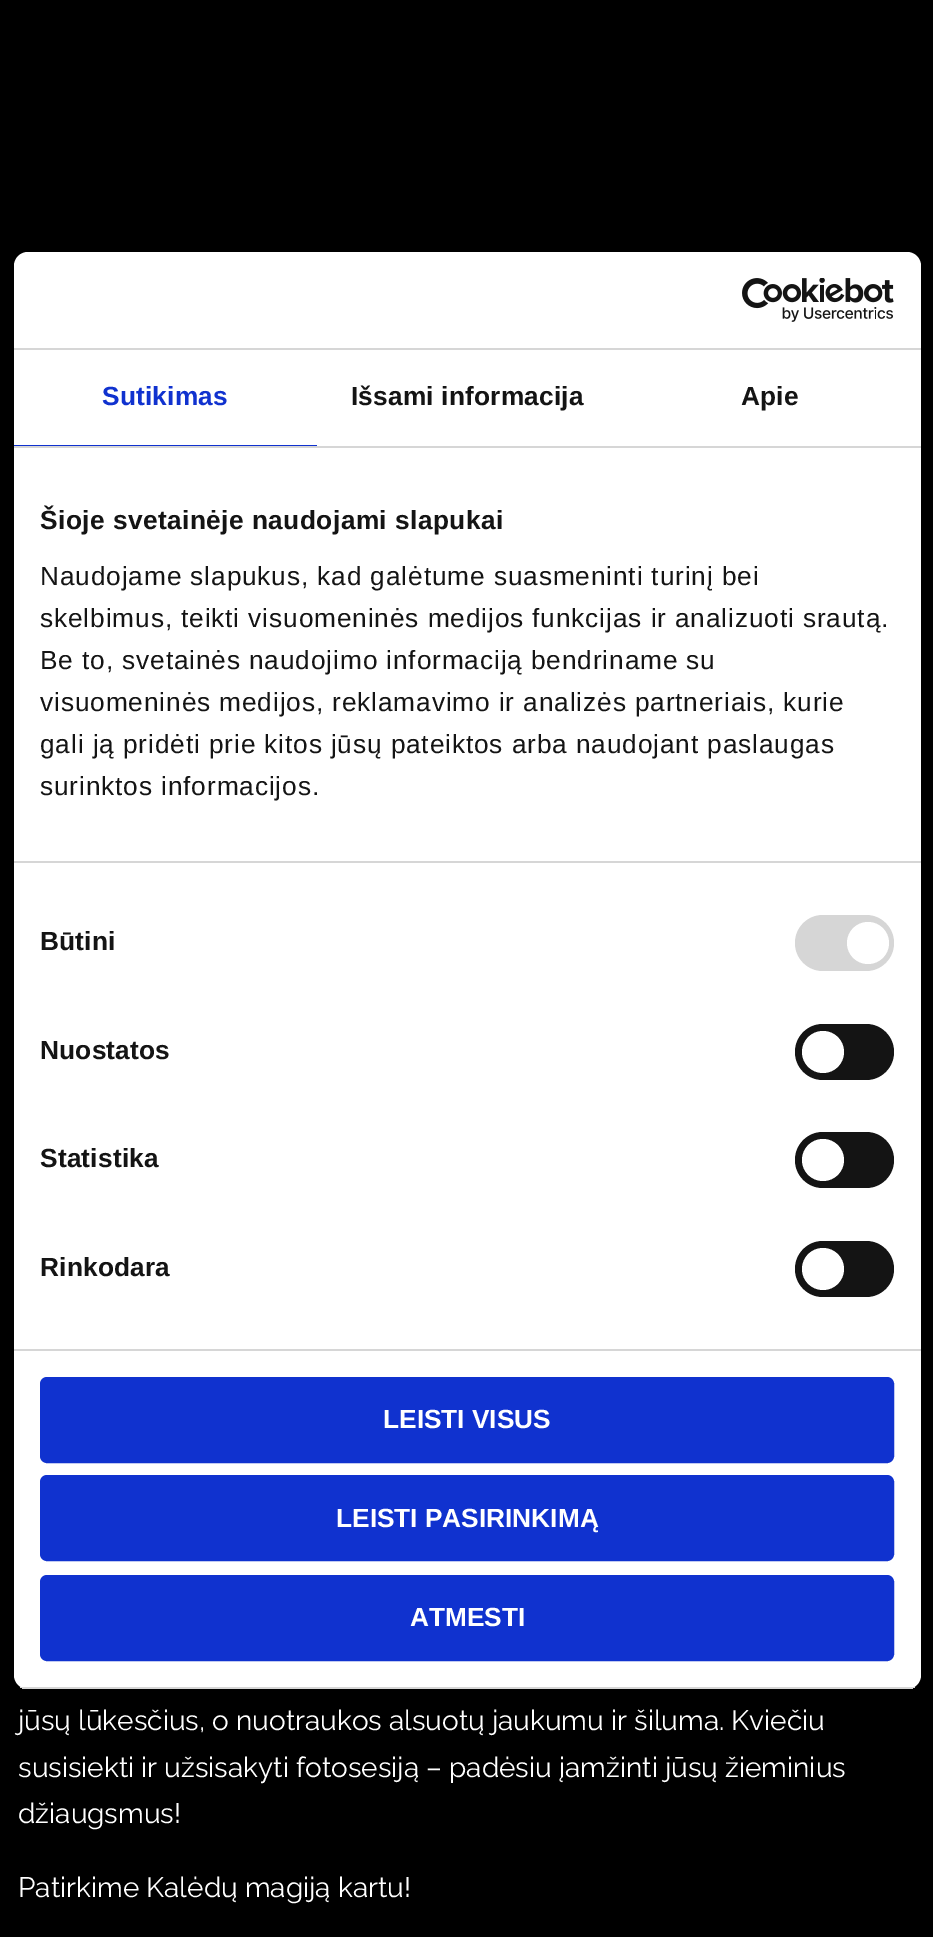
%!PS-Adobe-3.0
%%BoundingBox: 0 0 933 1937
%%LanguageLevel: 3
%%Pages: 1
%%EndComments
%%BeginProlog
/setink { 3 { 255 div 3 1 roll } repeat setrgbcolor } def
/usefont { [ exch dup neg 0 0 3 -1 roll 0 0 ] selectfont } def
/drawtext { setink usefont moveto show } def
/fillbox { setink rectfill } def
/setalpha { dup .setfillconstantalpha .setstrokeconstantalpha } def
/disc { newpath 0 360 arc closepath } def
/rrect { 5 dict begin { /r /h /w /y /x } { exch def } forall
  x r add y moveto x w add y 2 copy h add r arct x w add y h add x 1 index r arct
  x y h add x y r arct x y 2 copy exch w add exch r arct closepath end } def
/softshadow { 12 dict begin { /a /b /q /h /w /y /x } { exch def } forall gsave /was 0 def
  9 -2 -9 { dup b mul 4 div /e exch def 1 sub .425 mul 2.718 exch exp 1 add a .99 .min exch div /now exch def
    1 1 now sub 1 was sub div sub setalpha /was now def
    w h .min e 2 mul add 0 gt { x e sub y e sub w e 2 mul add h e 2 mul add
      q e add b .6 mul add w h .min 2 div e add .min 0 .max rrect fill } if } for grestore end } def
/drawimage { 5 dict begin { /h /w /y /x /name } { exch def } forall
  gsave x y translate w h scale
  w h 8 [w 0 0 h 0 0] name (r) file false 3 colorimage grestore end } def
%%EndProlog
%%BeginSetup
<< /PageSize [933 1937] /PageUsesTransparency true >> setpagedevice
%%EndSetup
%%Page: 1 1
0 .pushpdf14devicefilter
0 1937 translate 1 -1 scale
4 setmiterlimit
0 0 933 1937 0 0 0 fillbox
14 308 907 1437 14 59.5 0.3 softshadow
255 255 255 setink
14 252 907 1437 14 rrect fill
14 348 907 2 214 214 214 fillbox
(assets/img1.rgb) 742 278 152 44 drawimage
14 446 907 2 214 214 214 fillbox
14 445 303 1 16 50 207 fillbox
/LiberationSans-Bold 26.25 usefont
102 405 moveto 0.2 0 (Sutikimas) ashow
20 20 20 setink
351 405 moveto 0.2 0 (Išsami informacija) ashow
741 405 moveto 0.2 0 (Apie) ashow
14 861 907 2 214 214 214 fillbox
20 20 20 setink
40 529 moveto 0.45 0 (Šioje svetainėje naudojami slapukai) ashow
/LiberationSans-Regular 26.25 usefont
40 585 moveto 0.88 0 (Naudojame slapukus, kad galėtume suasmeninti turinį bei) ashow
40 627 moveto 0.88 0 (skelbimus, teikti visuomeninės medijos funkcijas ir analizuoti srautą.) ashow
40 669 moveto 0.88 0 (Be to, svetainės naudojimo informaciją bendriname su) ashow
40 711 moveto 0.88 0 (visuomeninės medijos, reklamavimo ir analizės partneriais, kurie) ashow
40 753 moveto 0.88 0 (gali ją pridėti prie kitos jūsų pateiktos arba naudojant paslaugas) ashow
40 795 moveto 0.88 0 (surinktos informacijos.) ashow
14 1349 907 2 214 214 214 fillbox
/LiberationSans-Bold 26.25 usefont
20 20 20 setink
40 950 moveto 0.2 0 (Būtini) ashow
214 214 214 setink
795 915 99 56 28 rrect fill
255 255 255 setink
868 943 21 disc fill
20 20 20 setink
40 1059 moveto 0.2 0 (Nuostatos) ashow
795 1024 99 56 28 rrect fill
255 255 255 setink
823 1052 21 disc fill
20 20 20 setink
40 1167 moveto 0.2 0 (Statistika) ashow
795 1132 99 56 28 rrect fill
255 255 255 setink
823 1160 21 disc fill
20 20 20 setink
40 1276 moveto 0.2 0 (Rinkodara) ashow
795 1241 99 56 28 rrect fill
255 255 255 setink
823 1269 21 disc fill
gsave
14 252 907 1437 14 rrect clip newpath
14 1687 907 2 214 214 214 fillbox
grestore
16 50 207 setink
42 1379 850 82 5 rrect gsave fill grestore
4 setlinewidth
stroke
(LEISTI VISUS) 383 1428 /LiberationSans-Bold 26.25 255 255 255 drawtext
16 50 207 setink
42 1477 850 82 5 rrect gsave fill grestore
stroke
(LEISTI PASIRINKIMĄ) 336 1527 /LiberationSans-Bold 26.25 255 255 255 drawtext
16 50 207 setink
42 1577 850 82 5 rrect gsave fill grestore
stroke
(ATMESTI) 410 1626 /LiberationSans-Bold 26.25 255 255 255 drawtext
(jūsų lūkesčius, o nuotraukos alsuotų jaukumu ir šiluma. Kviečiu) 18 1730 /Raleway-Thin 28 255 255 255 drawtext
(susisiekti ir užsisakyti fotosesiją – padėsiu įamžinti jūsų žieminius) 18 1777 /Raleway-Thin 28 255 255 255 drawtext
(džiaugsmus!) 18 1823 /Raleway-Thin 28 255 255 255 drawtext
(Patirkime Kalėdų magiją kartu!) 18 1897 /Raleway-Thin 28 255 255 255 drawtext
.poppdf14devicefilter showpage
%%EOF
